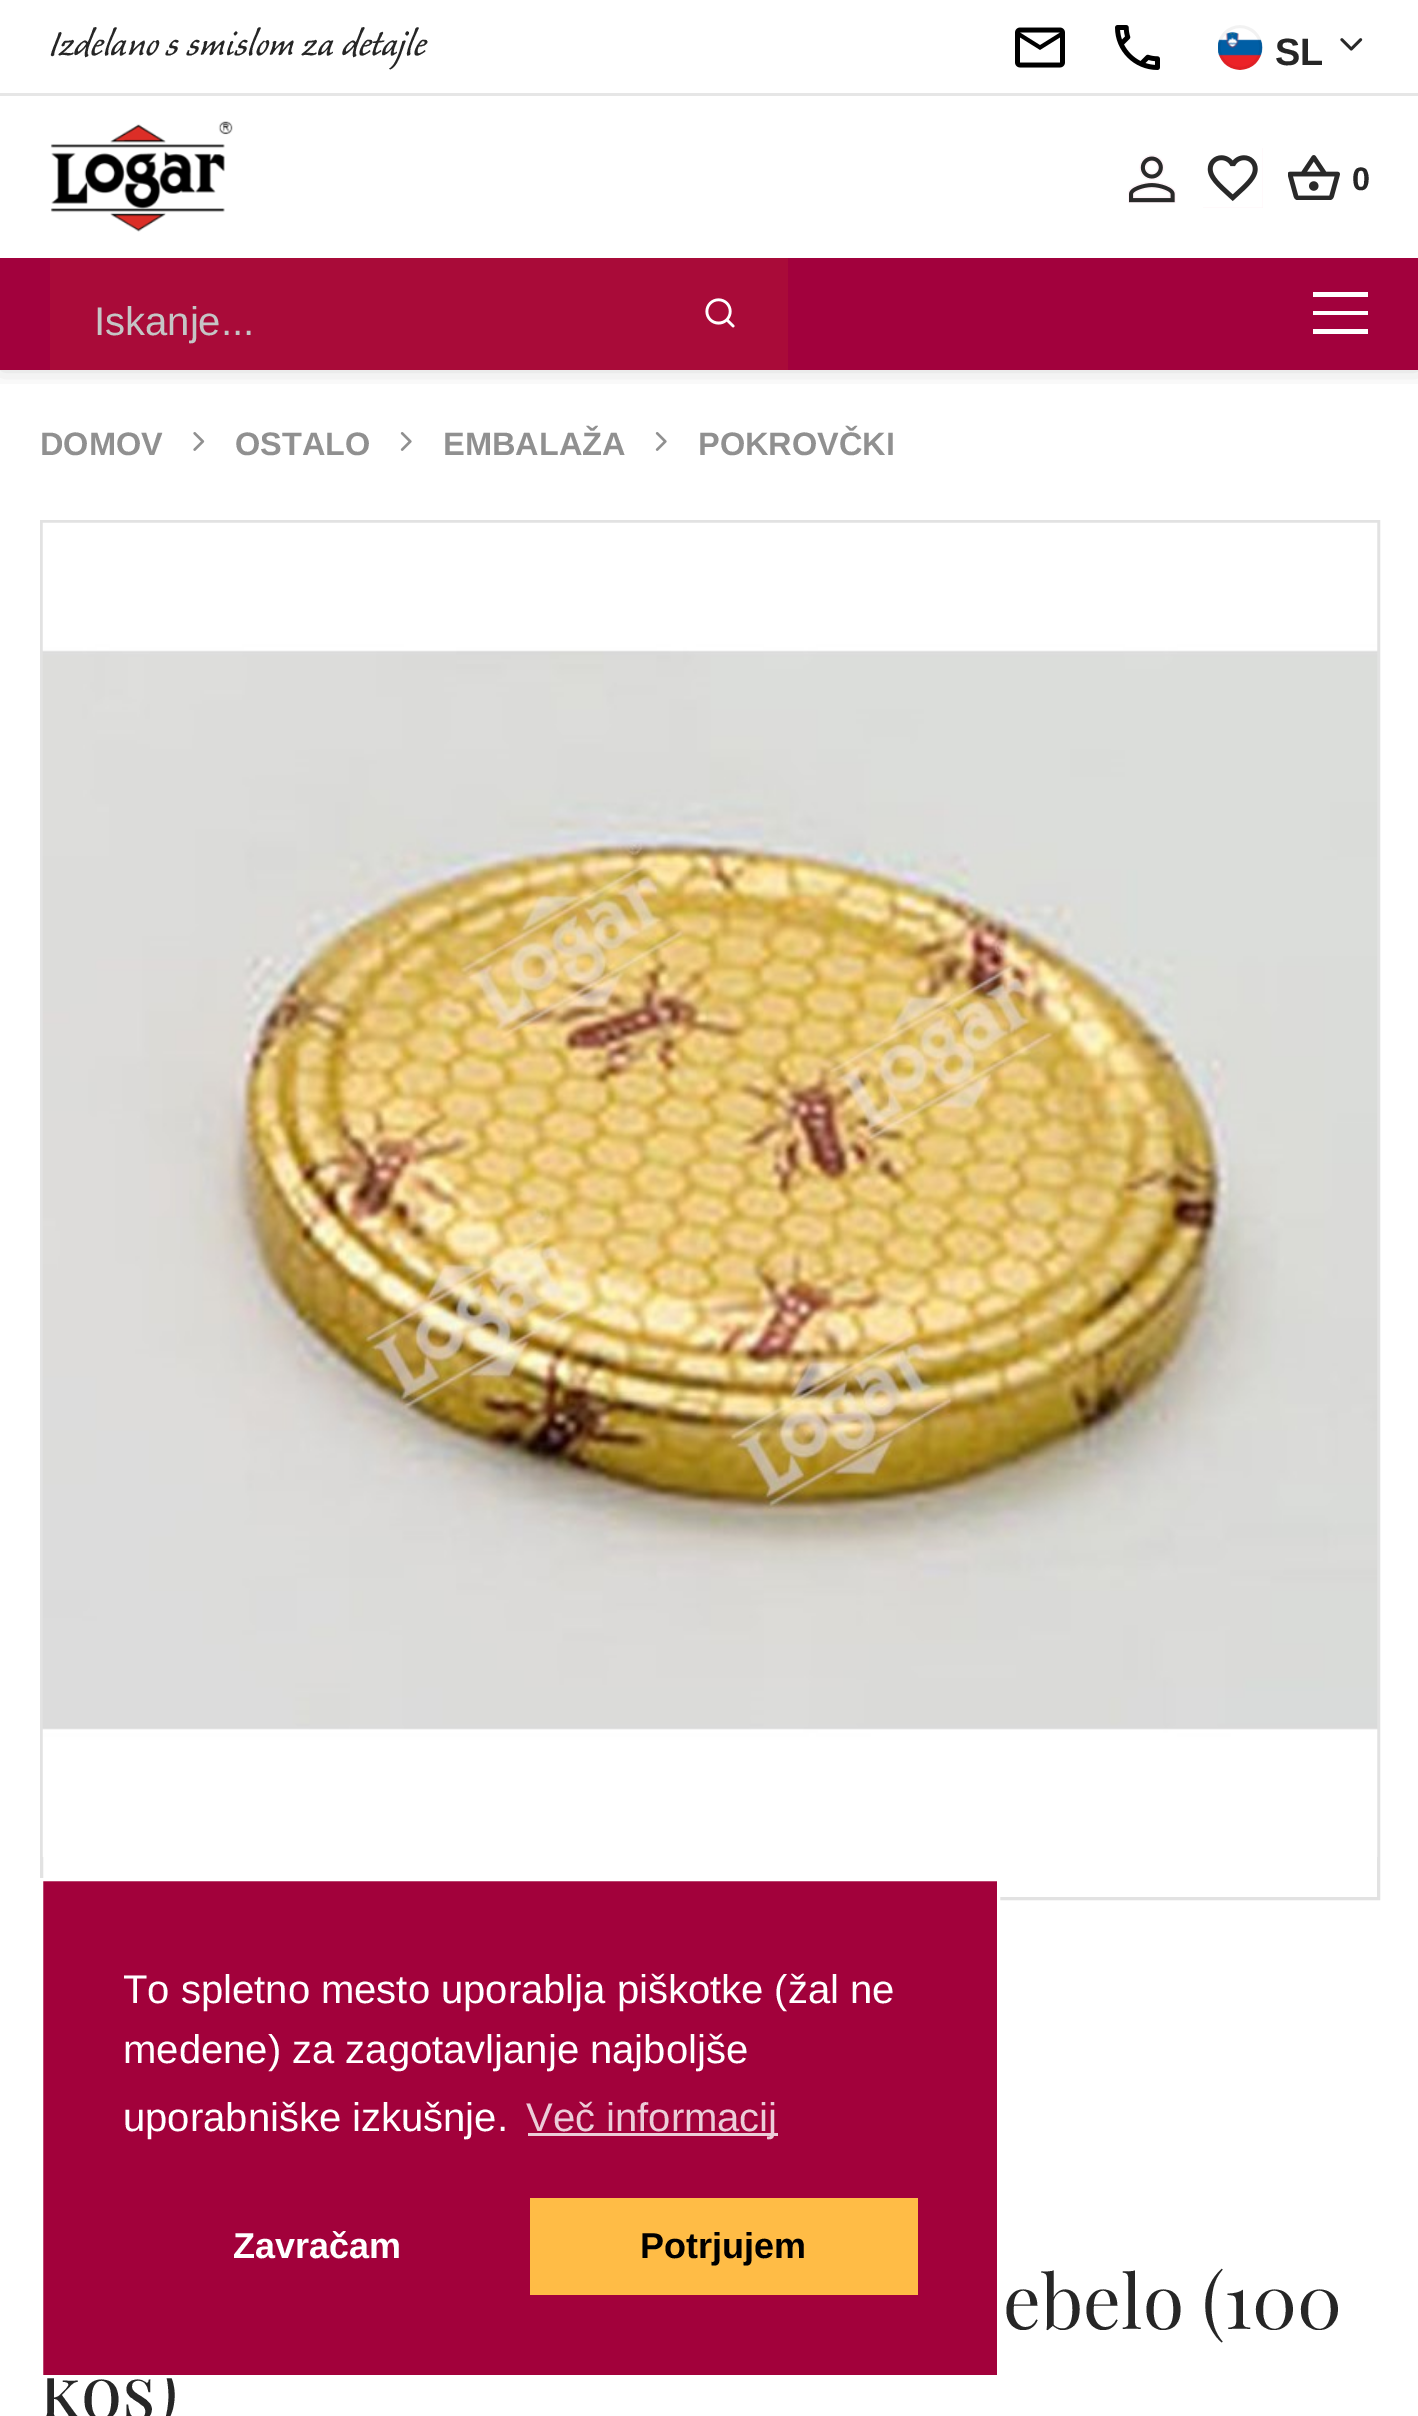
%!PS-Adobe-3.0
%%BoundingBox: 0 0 1418 2416
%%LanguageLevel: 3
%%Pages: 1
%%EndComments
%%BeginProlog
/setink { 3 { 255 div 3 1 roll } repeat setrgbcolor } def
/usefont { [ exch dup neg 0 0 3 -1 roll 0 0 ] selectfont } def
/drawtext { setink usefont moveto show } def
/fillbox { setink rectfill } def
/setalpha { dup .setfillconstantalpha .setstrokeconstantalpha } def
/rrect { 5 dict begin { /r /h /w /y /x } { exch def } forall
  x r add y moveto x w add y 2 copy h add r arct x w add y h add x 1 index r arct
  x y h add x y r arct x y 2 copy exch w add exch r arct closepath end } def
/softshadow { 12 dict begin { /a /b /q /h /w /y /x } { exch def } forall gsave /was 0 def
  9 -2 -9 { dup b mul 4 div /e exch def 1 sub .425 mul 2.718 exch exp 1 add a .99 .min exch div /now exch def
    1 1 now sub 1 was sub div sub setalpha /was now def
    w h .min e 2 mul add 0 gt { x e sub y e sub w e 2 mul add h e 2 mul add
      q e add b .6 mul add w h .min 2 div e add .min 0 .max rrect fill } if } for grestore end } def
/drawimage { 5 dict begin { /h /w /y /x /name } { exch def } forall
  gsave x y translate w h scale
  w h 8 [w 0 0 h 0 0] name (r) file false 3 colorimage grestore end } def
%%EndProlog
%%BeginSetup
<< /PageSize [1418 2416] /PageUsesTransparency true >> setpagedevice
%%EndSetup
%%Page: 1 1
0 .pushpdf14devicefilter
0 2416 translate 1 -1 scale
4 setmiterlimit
0 0 1418 2416 255 255 255 fillbox
gsave
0 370 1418 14 rectclip
0 0 0 setink
0 0 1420 370 0 12.5 0.15 softshadow
grestore
0 93 1418 3 230 230 230 fillbox
(Izdelano s smislom za detajle) 50 55 /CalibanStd-Regular 45 38 38 38 drawtext
(assets/img1.rgb) 1015 27 50 41 drawimage
(assets/img2.rgb) 1115 25 45 45 drawimage
(assets/img3.rgb) 1218 25 45 45 drawimage
(SL) 1275 65 /LiberationSans-Bold 38 38 38 38 drawtext
(assets/img4.rgb) 1340 38 23 13 drawimage
(assets/img5.rgb) 50 121 183 111 drawimage
(assets/img6.rgb) 1128 155 48 48 drawimage
(assets/img7.rgb) 1203 148 60 60 drawimage
(assets/img8.rgb) 1288 155 52 45 drawimage
(0) 1352 190 /LiberationSans-Bold 32.5 38 38 38 drawtext
0 258 1418 112 162 1 61 fillbox
50 258 738 112 169 11 57 fillbox
(Iskanje...) 94 335 /LiberationSans-Regular 40 197 197 197 drawtext
(assets/img9.rgb) 705 298 30 30 drawimage
1313 292 55 5 255 255 255 fillbox
1313 311 55 4 255 255 255 fillbox
1313 329 55 5 255 255 255 fillbox
(DOMOV) 40 455 /LiberationSans-Bold 32.5 144 144 144 drawtext
(assets/img10.rgb) 193 432 12 19 drawimage
(OSTALO) 235 455 /LiberationSans-Bold 32.5 144 144 144 drawtext
(assets/img11.rgb) 400 432 12 19 drawimage
(EMBALAŽA) 443 455 /LiberationSans-Bold 32.5 144 144 144 drawtext
(assets/img11.rgb) 655 432 12 19 drawimage
(POKROVČKI) 698 455 /LiberationSans-Bold 32.5 144 144 144 drawtext
226 226 226 setink
3 setlinewidth
41.5 521.5 1337 1377 rectstroke
(kos\)) 40 2419 /PlayfairDisplay-Regular 75 38 38 38 drawtext
162 1 59 setink
41.5 1879.5 moveto 998.5 1879.5 lineto 998.5 2376.5 lineto 41.5 2376.5 lineto closepath gsave fill grestore
255 255 255 setink
stroke
(To spletno mesto uporablja piškotke \(žal ne) 123 2003 /LiberationSans-Regular 40 255 255 255 drawtext
(medene\) za zagotavljanje najboljše) 123 2063 /LiberationSans-Regular 40 255 255 255 drawtext
(uporabniške izkušnje.) 123 2131 /LiberationSans-Regular 40 255 255 255 drawtext
528 2133 250 3 236 204 216 fillbox
(Več informacij) 526 2131 /LiberationSans-Regular 40 236 204 216 drawtext
(Zavračam) 233 2258 /LiberationSans-Bold 36 255 255 255 drawtext
530 2198 388 97 255 188 70 fillbox
(Potrjujem) 640 2258 /LiberationSans-Bold 36 0 0 0 drawtext
(assets/img12.rgb) 42 522 1336 1335 drawimage
(ebelo \(100) 1003 2329 /PlayfairDisplay-Regular 75 38 38 38 drawtext
.poppdf14devicefilter showpage
%%EOF
